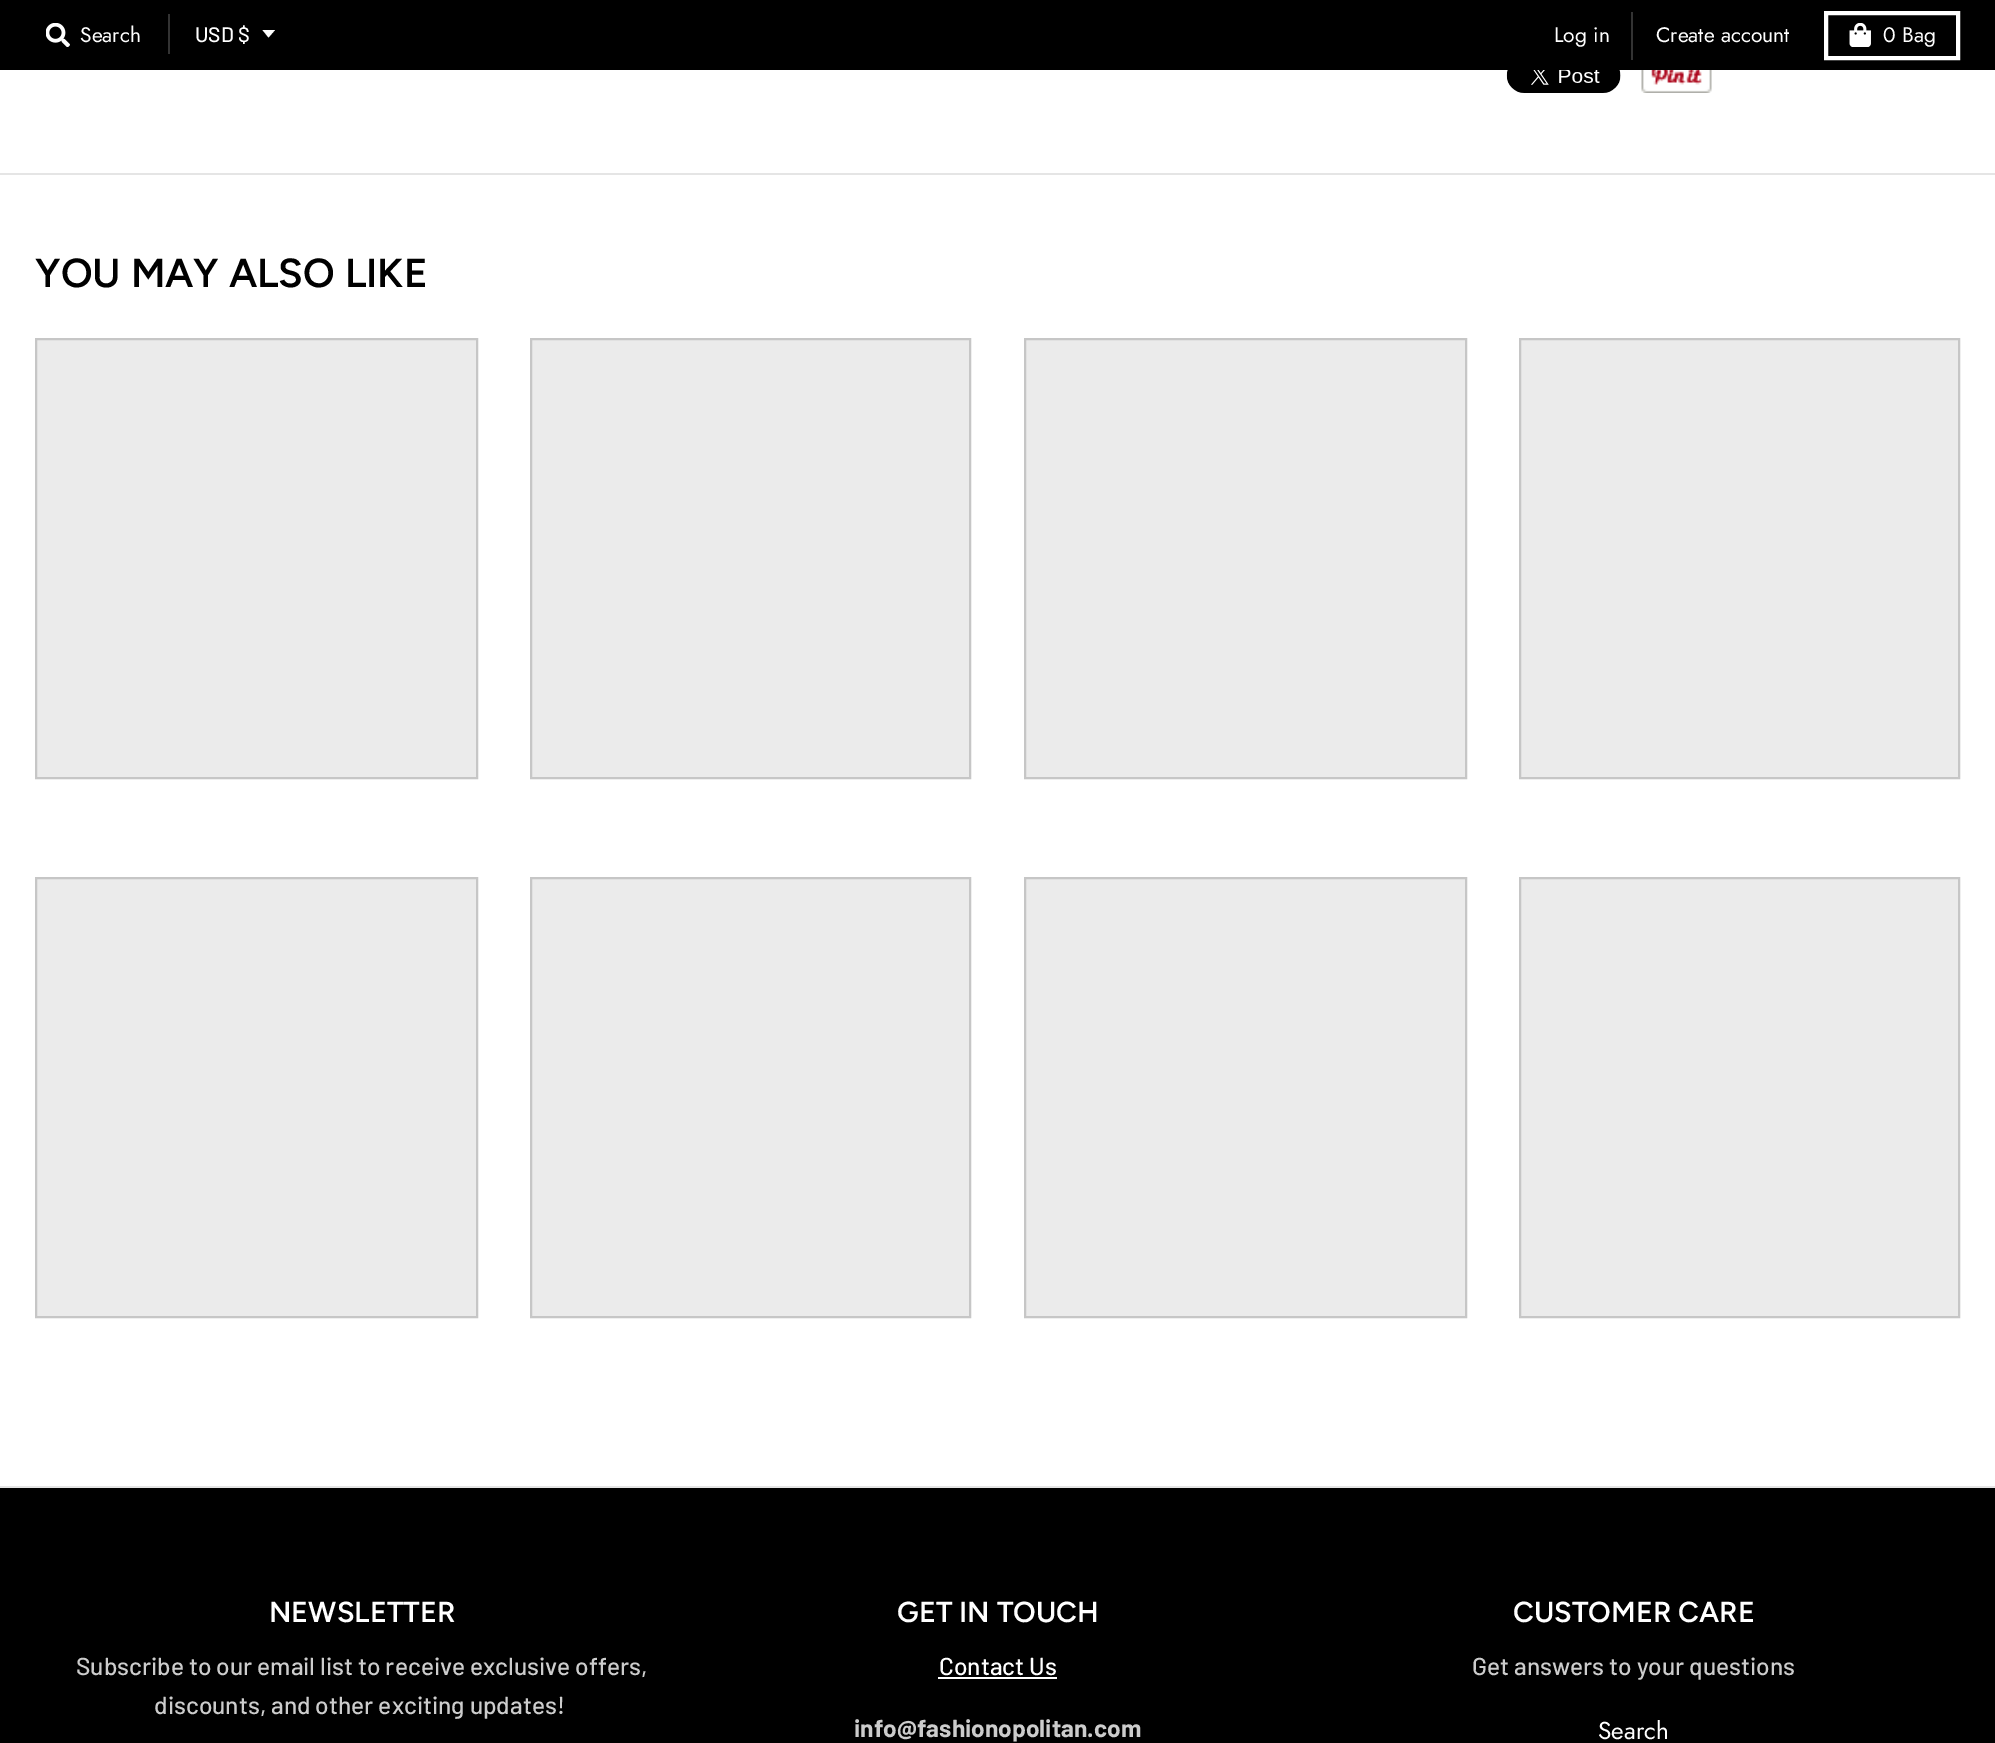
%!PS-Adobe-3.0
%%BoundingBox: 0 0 1995 1743
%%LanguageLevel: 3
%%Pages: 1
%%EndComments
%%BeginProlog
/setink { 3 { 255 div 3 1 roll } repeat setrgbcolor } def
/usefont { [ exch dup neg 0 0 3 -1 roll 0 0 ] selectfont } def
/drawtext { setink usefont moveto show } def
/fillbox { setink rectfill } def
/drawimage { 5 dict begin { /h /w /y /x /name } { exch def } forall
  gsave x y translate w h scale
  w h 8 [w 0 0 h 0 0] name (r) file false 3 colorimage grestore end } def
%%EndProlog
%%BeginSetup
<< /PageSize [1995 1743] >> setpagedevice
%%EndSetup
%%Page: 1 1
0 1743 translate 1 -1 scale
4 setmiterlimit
0 0 1995 1743 255 255 255 fillbox
0 0 1995 70 0 0 0 fillbox
(assets/img1.rgb) 46 23 24 24 drawimage
(Search) 80 42 /Jost-Regular 21 255 255 255 drawtext
168 14 2 40 51 51 51 fillbox
255 255 255 setink
262.5 30 moveto 268.5 37.5 lineto 275 30 lineto closepath fill
(USD $) 195 42 /Barlow-Medium 21 255 255 255 drawtext
1631 12 2 48 51 51 51 fillbox
(Log in) 1554 42 /Jost-Regular 21 255 255 255 drawtext
(Create account) 1656 42 /Jost-Regular 21 255 255 255 drawtext
4 setlinewidth
1826 13 132 45 rectstroke
(assets/img2.rgb) 1849 23 22 24 drawimage
(0 Bag) 1883 42 /Jost-Regular 21 255 255 255 drawtext
0 173 1995 2 229 229 229 fillbox
(assets/img3.rgb) 1506 70 115 23 drawimage
(assets/img4.rgb) 1641 70 71 23 drawimage
0 1486 1995 2 229 229 229 fillbox
(YOU MAY ALSO LIKE) 35 287 /Figtree-SemiBold 40.5 0 0 0 drawtext
235 235 235 setink
36 339 moveto 477 339 lineto 477 778 lineto 36 778 lineto closepath gsave fill grestore
198 198 198 setink
2 setlinewidth
stroke
235 235 235 setink
531 339 moveto 970 339 lineto 970 778 lineto 531 778 lineto closepath gsave fill grestore
198 198 198 setink
stroke
235 235 235 setink
1025 339 moveto 1466 339 lineto 1466 778 lineto 1025 778 lineto closepath gsave fill grestore
198 198 198 setink
stroke
235 235 235 setink
1520 339 moveto 1959 339 lineto 1959 778 lineto 1520 778 lineto closepath gsave fill grestore
198 198 198 setink
stroke
235 235 235 setink
36 878 moveto 477 878 lineto 477 1317 lineto 36 1317 lineto closepath gsave fill grestore
198 198 198 setink
stroke
235 235 235 setink
531 878 moveto 970 878 lineto 970 1317 lineto 531 1317 lineto closepath gsave fill grestore
198 198 198 setink
stroke
235 235 235 setink
1025 878 moveto 1466 878 lineto 1466 1317 lineto 1025 1317 lineto closepath gsave fill grestore
198 198 198 setink
stroke
235 235 235 setink
1520 878 moveto 1959 878 lineto 1959 1317 lineto 1520 1317 lineto closepath gsave fill grestore
198 198 198 setink
stroke
0 1488 1995 255 0 0 0 fillbox
(NEWSLETTER) 269 1622 /Figtree-SemiBold 28.9 255 255 255 drawtext
(Subscribe to our email list to receive exclusive offers,) 76 1675 /Barlow-Medium 24.5 204 204 204 drawtext
(discounts, and other exciting updates!) 154 1714 /Barlow-Medium 24.5 204 204 204 drawtext
(GET IN TOUCH) 897 1622 /Figtree-SemiBold 28.9 255 255 255 drawtext
(Contact Us) 939 1675 /Barlow-Medium 24.5 255 255 255 drawtext
938 1677 119 2 255 255 255 fillbox
(info@fashionopolitan.com) 854 1737 /Barlow-Bold 24.5 204 204 204 drawtext
(CUSTOMER CARE) 1513 1622 /Figtree-SemiBold 28.9 255 255 255 drawtext
(Get answers to your questions) 1472 1675 /Barlow-Medium 24.5 204 204 204 drawtext
(Search) 1598 1739 /Jost-Regular 24.5 255 255 255 drawtext
showpage
%%EOF
